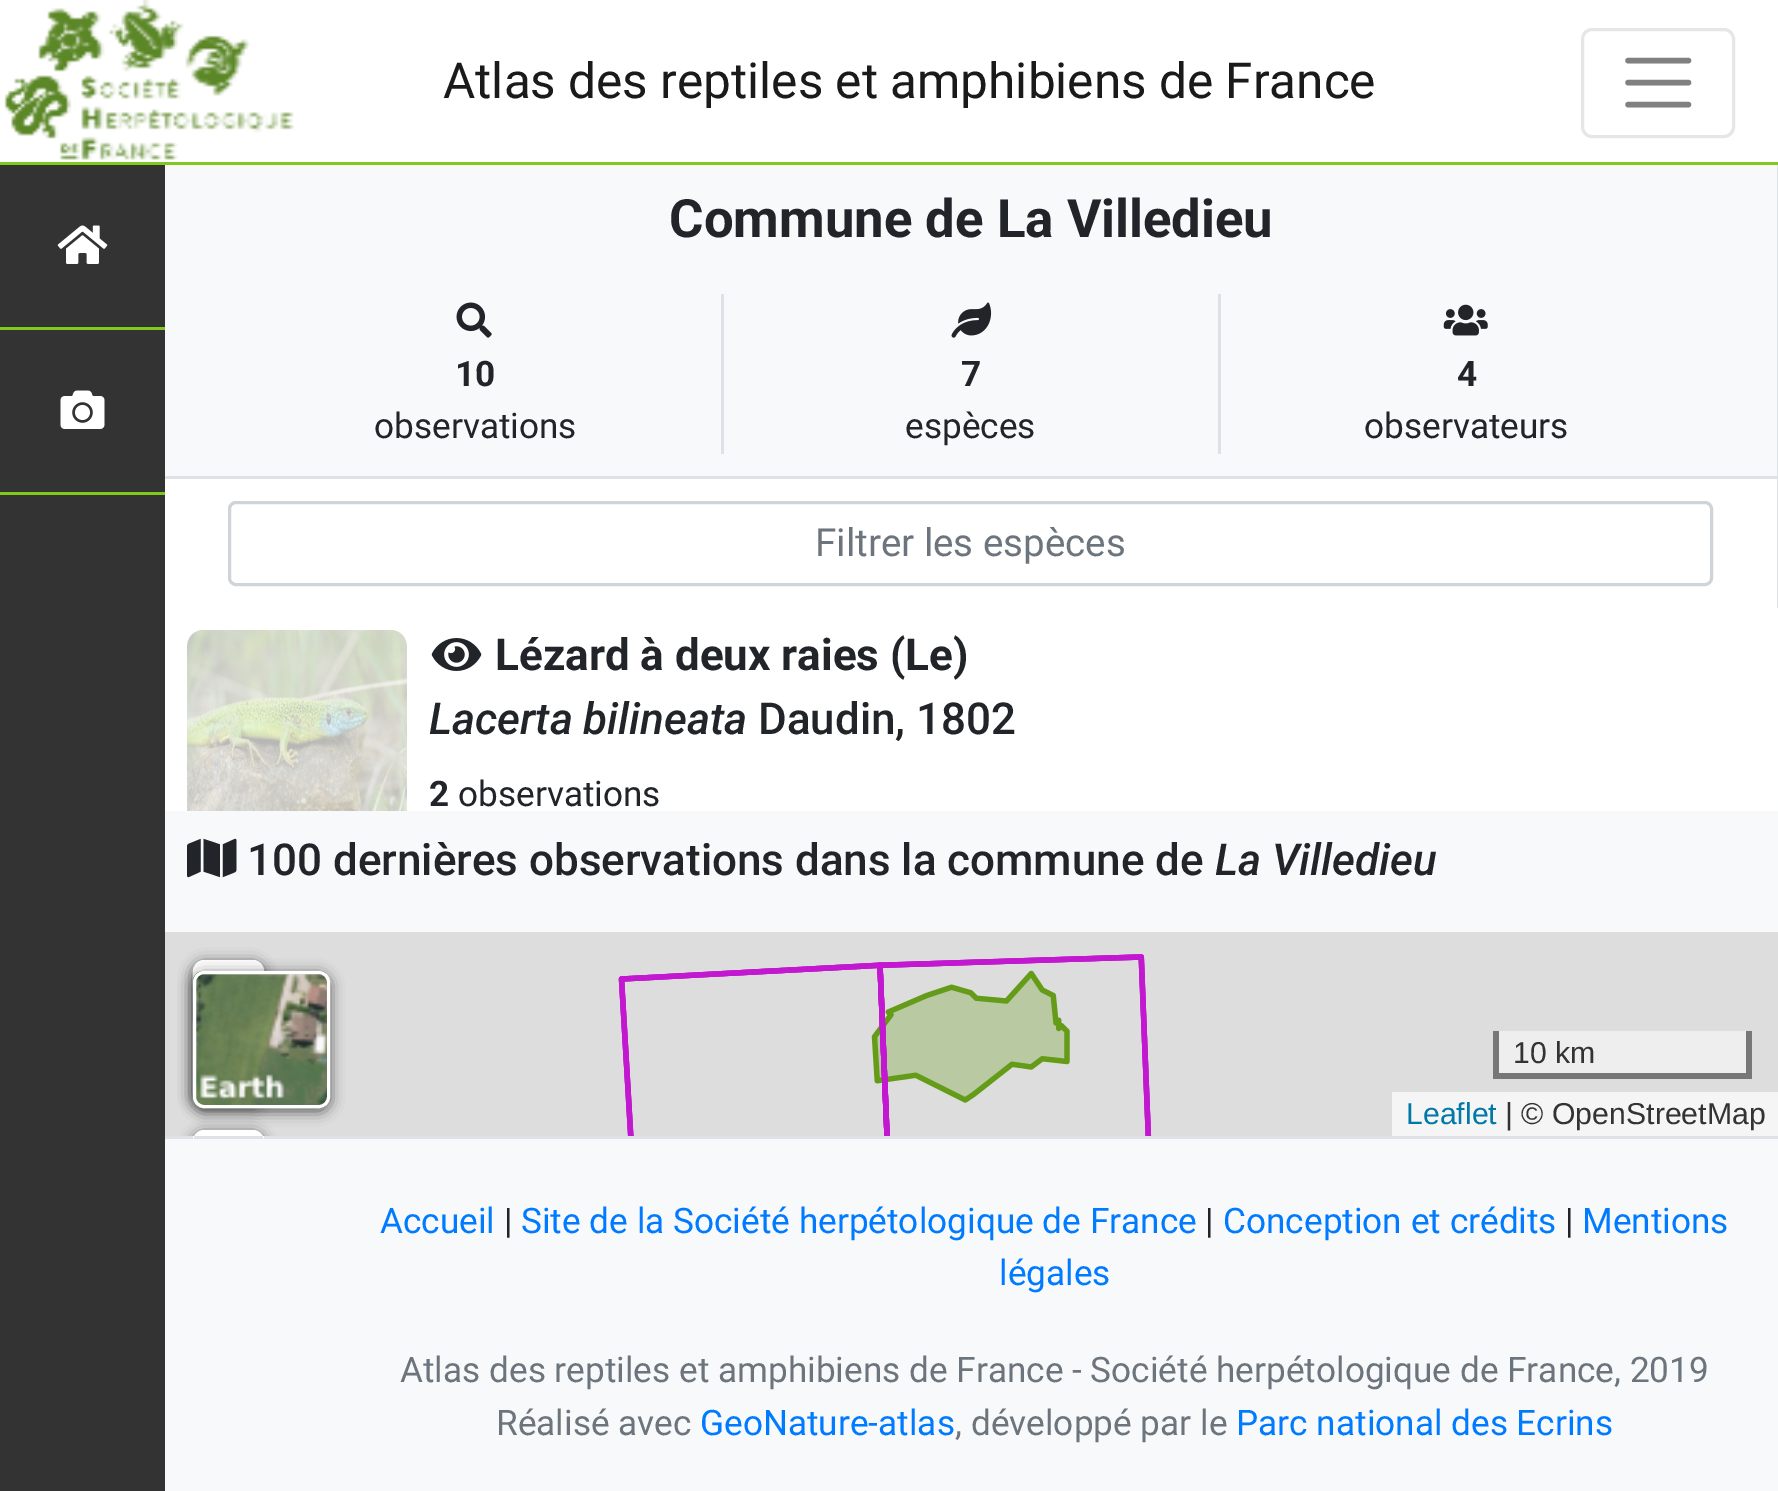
%!PS-Adobe-3.0
%%BoundingBox: 0 0 1778 1491
%%LanguageLevel: 3
%%Pages: 1
%%EndComments
%%BeginProlog
/setink { 3 { 255 div 3 1 roll } repeat setrgbcolor } def
/usefont { [ exch dup neg 0 0 3 -1 roll 0 0 ] selectfont } def
/drawtext { setink usefont moveto show } def
/fillbox { setink rectfill } def
/setalpha { dup .setfillconstantalpha .setstrokeconstantalpha } def
/rrect { 5 dict begin { /r /h /w /y /x } { exch def } forall
  x r add y moveto x w add y 2 copy h add r arct x w add y h add x 1 index r arct
  x y h add x y r arct x y 2 copy exch w add exch r arct closepath end } def
/softshadow { 12 dict begin { /a /b /q /h /w /y /x } { exch def } forall gsave /was 0 def
  9 -2 -9 { dup b mul 4 div /e exch def 1 sub .425 mul 2.718 exch exp 1 add a .99 .min exch div /now exch def
    1 1 now sub 1 was sub div sub setalpha /was now def
    w h .min e 2 mul add 0 gt { x e sub y e sub w e 2 mul add h e 2 mul add
      q e add b .6 mul add w h .min 2 div e add .min 0 .max rrect fill } if } for grestore end } def
/drawimage { 5 dict begin { /h /w /y /x /name } { exch def } forall
  gsave x y translate w h scale
  w h 8 [w 0 0 h 0 0] name (r) file false 3 colorimage grestore end } def
%%EndProlog
%%BeginSetup
<< /PageSize [1778 1491] /PageUsesTransparency true >> setpagedevice
%%EndSetup
%%Page: 1 1
0 .pushpdf14devicefilter
0 1491 translate 1 -1 scale
4 setmiterlimit
0 0 1778 1491 222 226 230 fillbox
0 0 1778 162 255 255 255 fillbox
0 162 1778 3 130 201 30 fillbox
(assets/img1.rgb) 4 0 290 160 drawimage
(Atlas des reptiles et amphibiens de France) 443 98 /Roboto-Regular 49.5 26 26 26 drawtext
230 230 230 setink
3 setlinewidth
1582.5 29.5 151 107 9.5 rrect stroke
128 128 128 setink
5.5 setlinewidth
1 setlinecap
1628 60.5 moveto 1688.5 60.5 lineto 1628 82.5 moveto 1688.5 82.5 lineto 1628 104.5 moveto 1688.5 104.5 lineto stroke
0 165 165 1326 51 51 51 fillbox
0 327 165 3 130 201 30 fillbox
(assets/img2.rgb) 57 225 51 39 drawimage
0 492 165 3 130 201 30 fillbox
(assets/img3.rgb) 60 390 45 39 drawimage
165 165 1612 311 248 249 250 fillbox
(Commune de La Villedieu) 669 237 /Roboto-Bold 52.75 33 37 41 drawtext
721 294 3 160 222 226 230 fillbox
(assets/img4.rgb) 456 302 36 36 drawimage
(10) 455 386 /Roboto-Bold 35.2 33 37 41 drawtext
(observations) 374 438 /Roboto-Regular 35.2 33 37 41 drawtext
1218 294 3 160 222 226 230 fillbox
(assets/img5.rgb) 951 302 41 36 drawimage
(7) 961 386 /Roboto-Bold 35.2 33 37 41 drawtext
(espèces) 905 438 /Roboto-Regular 35.2 33 37 41 drawtext
(assets/img6.rgb) 1443 304 45 32 drawimage
(4) 1457 386 /Roboto-Bold 35.2 33 37 41 drawtext
(observateurs) 1364 438 /Roboto-Regular 35.2 33 37 41 drawtext
165 479 1612 129 255 255 255 fillbox
206 212 218 setink
3 setlinewidth
0 setlinecap
229.5 502.5 1482 82 6.5 rrect stroke
(Filtrer les espèces) 815 556 /Roboto-Regular 38.5 108 117 125 drawtext
165 608 1613 203 255 255 255 fillbox
(assets/img7.rgb) 187 630 220 181 drawimage
(assets/img8.rgb) 431 638 51 33 drawimage
(Lézard à deux raies \(Le\)) 495 670 /Roboto-Bold 44 33 37 41 drawtext
(Lacerta bilineata) 429 734 /Roboto-MediumItalic 44 33 37 41 drawtext
(Daudin, 1802) 758 734 /Roboto-Medium 44 33 37 41 drawtext
(2) 429 806 /Roboto-Bold 35.2 33 37 41 drawtext
(observations) 458 806 /Roboto-Regular 35.2 33 37 41 drawtext
165 811 1613 121 248 249 250 fillbox
(assets/img9.rgb) 187 838 50 40 drawimage
(100 dernières observations dans la commune de) 247 875 /Roboto-Medium 44 33 37 41 drawtext
(La Villedieu) 1215 875 /Roboto-MediumItalic 44 33 37 41 drawtext
165 932 1613 204 221 221 221 fillbox
(assets/img10.rgb) 618 954 534 182 drawimage
gsave
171 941 moveto 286 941 lineto 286 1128 lineto 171 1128 lineto closepath 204 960 moveto 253 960 lineto 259 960 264 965 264 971 curveto 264 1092 lineto 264 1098 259 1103 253 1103 curveto 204 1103 lineto 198 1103 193 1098 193 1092 curveto 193 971 lineto 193 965 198 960 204 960 curveto closepath eoclip newpath
0 0 0 setink
193 963 71 143 11 7 0.65 softshadow
grestore
255 255 255 setink
204 960 moveto 253 960 lineto 259 960 264 965 264 971 curveto 264 1031 lineto 193 1031 lineto 193 971 lineto 193 965 198 960 204 960 curveto closepath fill
165 1139 1613 352 248 249 250 fillbox
gsave
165 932 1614 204 rectclip
0 0 0 setink
193 1133 71 72 11 7 0.65 softshadow
grestore
255 255 255 setink
204 1130 moveto 253 1130 lineto 259 1130 264 1135 264 1141 curveto 264 1136 lineto 193 1136 lineto 193 1141 lineto 193 1135 198 1130 204 1130 curveto closepath fill
gsave
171 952 moveto 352 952 lineto 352 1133 lineto 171 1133 lineto closepath 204 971 moveto 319 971 lineto 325 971 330 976 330 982 curveto 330 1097 lineto 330 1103 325 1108 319 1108 curveto 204 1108 lineto 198 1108 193 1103 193 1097 curveto 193 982 lineto 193 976 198 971 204 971 curveto closepath eoclip newpath
0 0 0 setink
193 974 137 137 11 7 0.65 softshadow
grestore
(assets/img11.rgb) 192 970 138 139 drawimage
194.5 972.5 134 134 9.5 rrect stroke
1499 1031 247 42 238 238 238 fillbox
1746 1031 6 47 119 119 119 fillbox
1493 1073 259 6 119 119 119 fillbox
1493 1031 6 47 119 119 119 fillbox
(10 km) 1513 1063 /LiberationSans-Regular 30.25 51 51 51 drawtext
1392 1092 386 44 245 245 245 fillbox
(Leaflet) 1406 1124 /LiberationSans-Regular 30.25 0 120 168 drawtext
(| © OpenStreetMap) 1505 1124 /LiberationSans-Regular 30.25 51 51 51 drawtext
(Accueil) 380 1233 /Roboto-Regular 35.2 0 123 255 drawtext
(|) 504 1233 /Roboto-Regular 35.2 33 37 41 drawtext
(Site de la Société herpétologique de France) 521 1233 /Roboto-Regular 35.2 0 123 255 drawtext
(|) 1205 1233 /Roboto-Regular 35.2 33 37 41 drawtext
(Conception et crédits) 1223 1233 /Roboto-Regular 35.2 0 123 255 drawtext
(|) 1565 1233 /Roboto-Regular 35.2 33 37 41 drawtext
(Mentions) 1582 1233 /Roboto-Regular 35.2 0 123 255 drawtext
(légales) 999 1285 /Roboto-Regular 35.2 0 123 255 drawtext
(Atlas des reptiles et amphibiens de France - Société herpétologique de France, 2019) 400 1382 /Roboto-Regular 35.2 108 117 125 drawtext
(Réalisé avec) 496 1435 /Roboto-Regular 35.2 108 117 125 drawtext
(GeoNature-atlas) 700 1435 /Roboto-Regular 35.2 0 123 255 drawtext
(, développé par le) 955 1435 /Roboto-Regular 35.2 108 117 125 drawtext
(Parc national des Ecrins) 1236 1435 /Roboto-Regular 35.2 0 123 255 drawtext
.poppdf14devicefilter showpage
%%EOF
